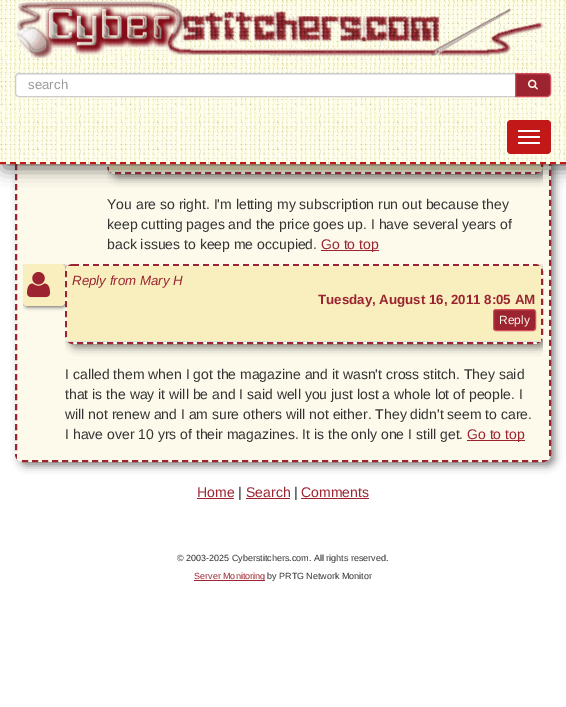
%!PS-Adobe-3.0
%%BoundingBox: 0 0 566 707
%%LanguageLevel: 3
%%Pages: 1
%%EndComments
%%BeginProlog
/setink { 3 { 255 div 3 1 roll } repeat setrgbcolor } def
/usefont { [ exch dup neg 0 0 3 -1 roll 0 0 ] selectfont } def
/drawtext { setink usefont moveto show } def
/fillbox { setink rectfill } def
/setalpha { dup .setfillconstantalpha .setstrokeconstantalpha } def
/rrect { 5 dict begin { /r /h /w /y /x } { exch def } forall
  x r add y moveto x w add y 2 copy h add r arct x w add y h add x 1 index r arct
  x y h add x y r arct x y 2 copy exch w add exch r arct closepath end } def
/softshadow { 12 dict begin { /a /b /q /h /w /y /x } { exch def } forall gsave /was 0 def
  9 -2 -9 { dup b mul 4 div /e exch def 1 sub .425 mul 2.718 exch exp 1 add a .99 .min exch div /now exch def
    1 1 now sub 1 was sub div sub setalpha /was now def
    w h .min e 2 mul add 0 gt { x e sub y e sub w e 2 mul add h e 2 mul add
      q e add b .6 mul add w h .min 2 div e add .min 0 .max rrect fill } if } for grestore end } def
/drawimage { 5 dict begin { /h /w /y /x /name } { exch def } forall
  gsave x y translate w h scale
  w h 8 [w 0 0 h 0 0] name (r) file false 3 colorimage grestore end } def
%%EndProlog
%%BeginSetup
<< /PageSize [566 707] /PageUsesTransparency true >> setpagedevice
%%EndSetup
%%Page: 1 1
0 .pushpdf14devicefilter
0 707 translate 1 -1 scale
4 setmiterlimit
0 0 566 707 255 255 255 fillbox
51 50 50 setink
19 -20 536 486 8 4 0.55 softshadow
253 250 236 setink
15 -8 536 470 8 rrect fill
155 36 48 setink
2 setlinewidth
[6 4] 0 setdash
23 -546 moveto 543 -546 lineto 547 -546 550 -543 550 -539 curveto 550 454 lineto 550 458 547 461 543 461 curveto 23 461 lineto 19 461 16 458 16 454 curveto 16 -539 lineto 16 -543 19 -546 23 -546 curveto closepath stroke
gsave
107 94 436 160 rectclip
51 50 50 setink
111 98 436 80 8 4 0.55 softshadow
grestore
253 250 236 setink
107 94 436 80 8 rrect fill
155 36 48 setink
115 95 moveto 535 95 lineto 539 95 542 98 542 102 curveto 542 166 lineto 542 170 539 173 535 173 curveto 115 173 lineto 111 173 108 170 108 166 curveto 108 102 lineto 108 98 111 95 115 95 curveto closepath stroke
109 164 432 7 248 238 190 fillbox
109 171 432 1 221 221 221 fillbox
51 50 50 setink
4 4 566 164 0 8.5 0.75 softshadow
(assets/img1.rgb) 0 0 566 164 drawimage
194 24 24 setink
0 163 moveto 566 163 lineto stroke
(assets/img2.rgb) 16 0 528 58 drawimage
255 255 255 setink
19 73 moveto 516 73 lineto 516 97 lineto 19 97 lineto 17 97 15 95 15 93 curveto 15 77 lineto 15 75 17 73 19 73 curveto closepath fill
236 236 236 setink
19 75 moveto 515 75 lineto 515 74 lineto 19 74 lineto 17 74 16 76 16 78 curveto 16 76 17 75 19 75 curveto closepath fill
204 204 204 setink
1 setlinewidth
[] 0 setdash
19 73.5 moveto 515.5 73.5 lineto 515.5 96.5 lineto 19 96.5 lineto 17 96.5 15.5 95 15.5 93 curveto 15.5 77 lineto 15.5 75 17 73.5 19 73.5 curveto closepath stroke
(search) 28 89 /LiberationSans-Regular 13.3 153 153 153 drawtext
155 36 48 setink
515.5 73.5 moveto 547 73.5 lineto 549 73.5 550.5 75 550.5 77 curveto 550.5 93 lineto 550.5 95 549 96.5 547 96.5 curveto 515.5 96.5 lineto closepath gsave fill grestore
214 79 93 setink
stroke
(assets/img3.rgb) 528 79 10 11 drawimage
194 24 24 setink
507 120 44 34 4 rrect fill
255 255 255 setink
518 130 22 2 1 rrect fill
518 136 22 2 1 rrect fill
518 142 22 2 1 rrect fill
17 454 532 6 253 250 236 fillbox
(You are so right. I'm letting my subscription run out because they) 107 209 /LiberationSans-Regular 14 51 51 51 drawtext
(keep cutting pages and the price goes up. I have several years of) 107 229 /LiberationSans-Regular 14 51 51 51 drawtext
(back issues to keep me occupied.) 107 249 /LiberationSans-Regular 14 51 51 51 drawtext
321 250 58 1 155 36 48 fillbox
(Go to top) 321 249 /LiberationSans-Regular 14 155 36 48 drawtext
gsave
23 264 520 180 rectclip
51 50 50 setink
24 265 42 42 4 2 0.75 softshadow
grestore
248 238 190 setink
23 264 42 42 4 rrect fill
(assets/img4.rgb) 27 272 24 26 drawimage
gsave
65 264 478 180 rectclip
51 50 50 setink
69 268 478 80 8 4 0.55 softshadow
grestore
253 250 236 setink
65 264 478 80 8 rrect fill
155 36 48 setink
2 setlinewidth
[6 4] 0 setdash
73 265 moveto 535 265 lineto 539 265 542 268 542 272 curveto 542 336 lineto 542 340 539 343 535 343 curveto 73 343 lineto 69 343 66 340 66 336 curveto 66 272 lineto 66 268 69 265 73 265 curveto closepath stroke
67 266 474 75 248 238 190 fillbox
67 341 474 1 221 221 221 fillbox
(Reply from Mary H) 72 285 /LiberationSans-Italic 13.3 155 36 48 drawtext
(Tuesday, August 16, 2011 8:05 AM) 318 304 /LiberationSans-Bold 13.3 155 36 48 drawtext
493.5 309.5 42 21 2.5 rrect gsave fill grestore
214 79 93 setink
1 setlinewidth
[] 0 setdash
stroke
(Reply) 499 324 /LiberationSans-Regular 12 253 250 236 drawtext
(I called them when I got the magazine and it wasn't cross stitch. They said) 65 379 /LiberationSans-Regular 14 51 51 51 drawtext
(that is the way it will be and I said well you just lost a whole lot of people. I) 65 399 /LiberationSans-Regular 14 51 51 51 drawtext
(will not renew and I am sure others will not either. They didn't seem to care.) 65 419 /LiberationSans-Regular 14 51 51 51 drawtext
(I have over 10 yrs of their magazines. It is the only one I still get.) 65 439 /LiberationSans-Regular 14 51 51 51 drawtext
467 440 58 1 155 36 48 fillbox
(Go to top) 467 439 /LiberationSans-Regular 14 155 36 48 drawtext
(Home) 197 497 /LiberationSans-Regular 14 155 36 48 drawtext
197 498 37 1 155 36 48 fillbox
(|) 238 497 /LiberationSans-Regular 14 51 51 51 drawtext
(Search) 246 497 /LiberationSans-Regular 14 155 36 48 drawtext
246 498 44 1 155 36 48 fillbox
(|) 294 497 /LiberationSans-Regular 14 51 51 51 drawtext
(Comments) 301 497 /LiberationSans-Regular 14 155 36 48 drawtext
301 498 68 1 155 36 48 fillbox
(© 2003-2025 Cyberstitchers.com. All rights reserved.) 177 561 /LiberationSans-Regular 9 51 51 51 drawtext
194 580 71 1 155 36 48 fillbox
(Server Monitoring) 194 579 /LiberationSans-Regular 9 155 36 48 drawtext
(by PRTG Network Monitor) 267 579 /LiberationSans-Regular 9 51 51 51 drawtext
.poppdf14devicefilter showpage
%%EOF
